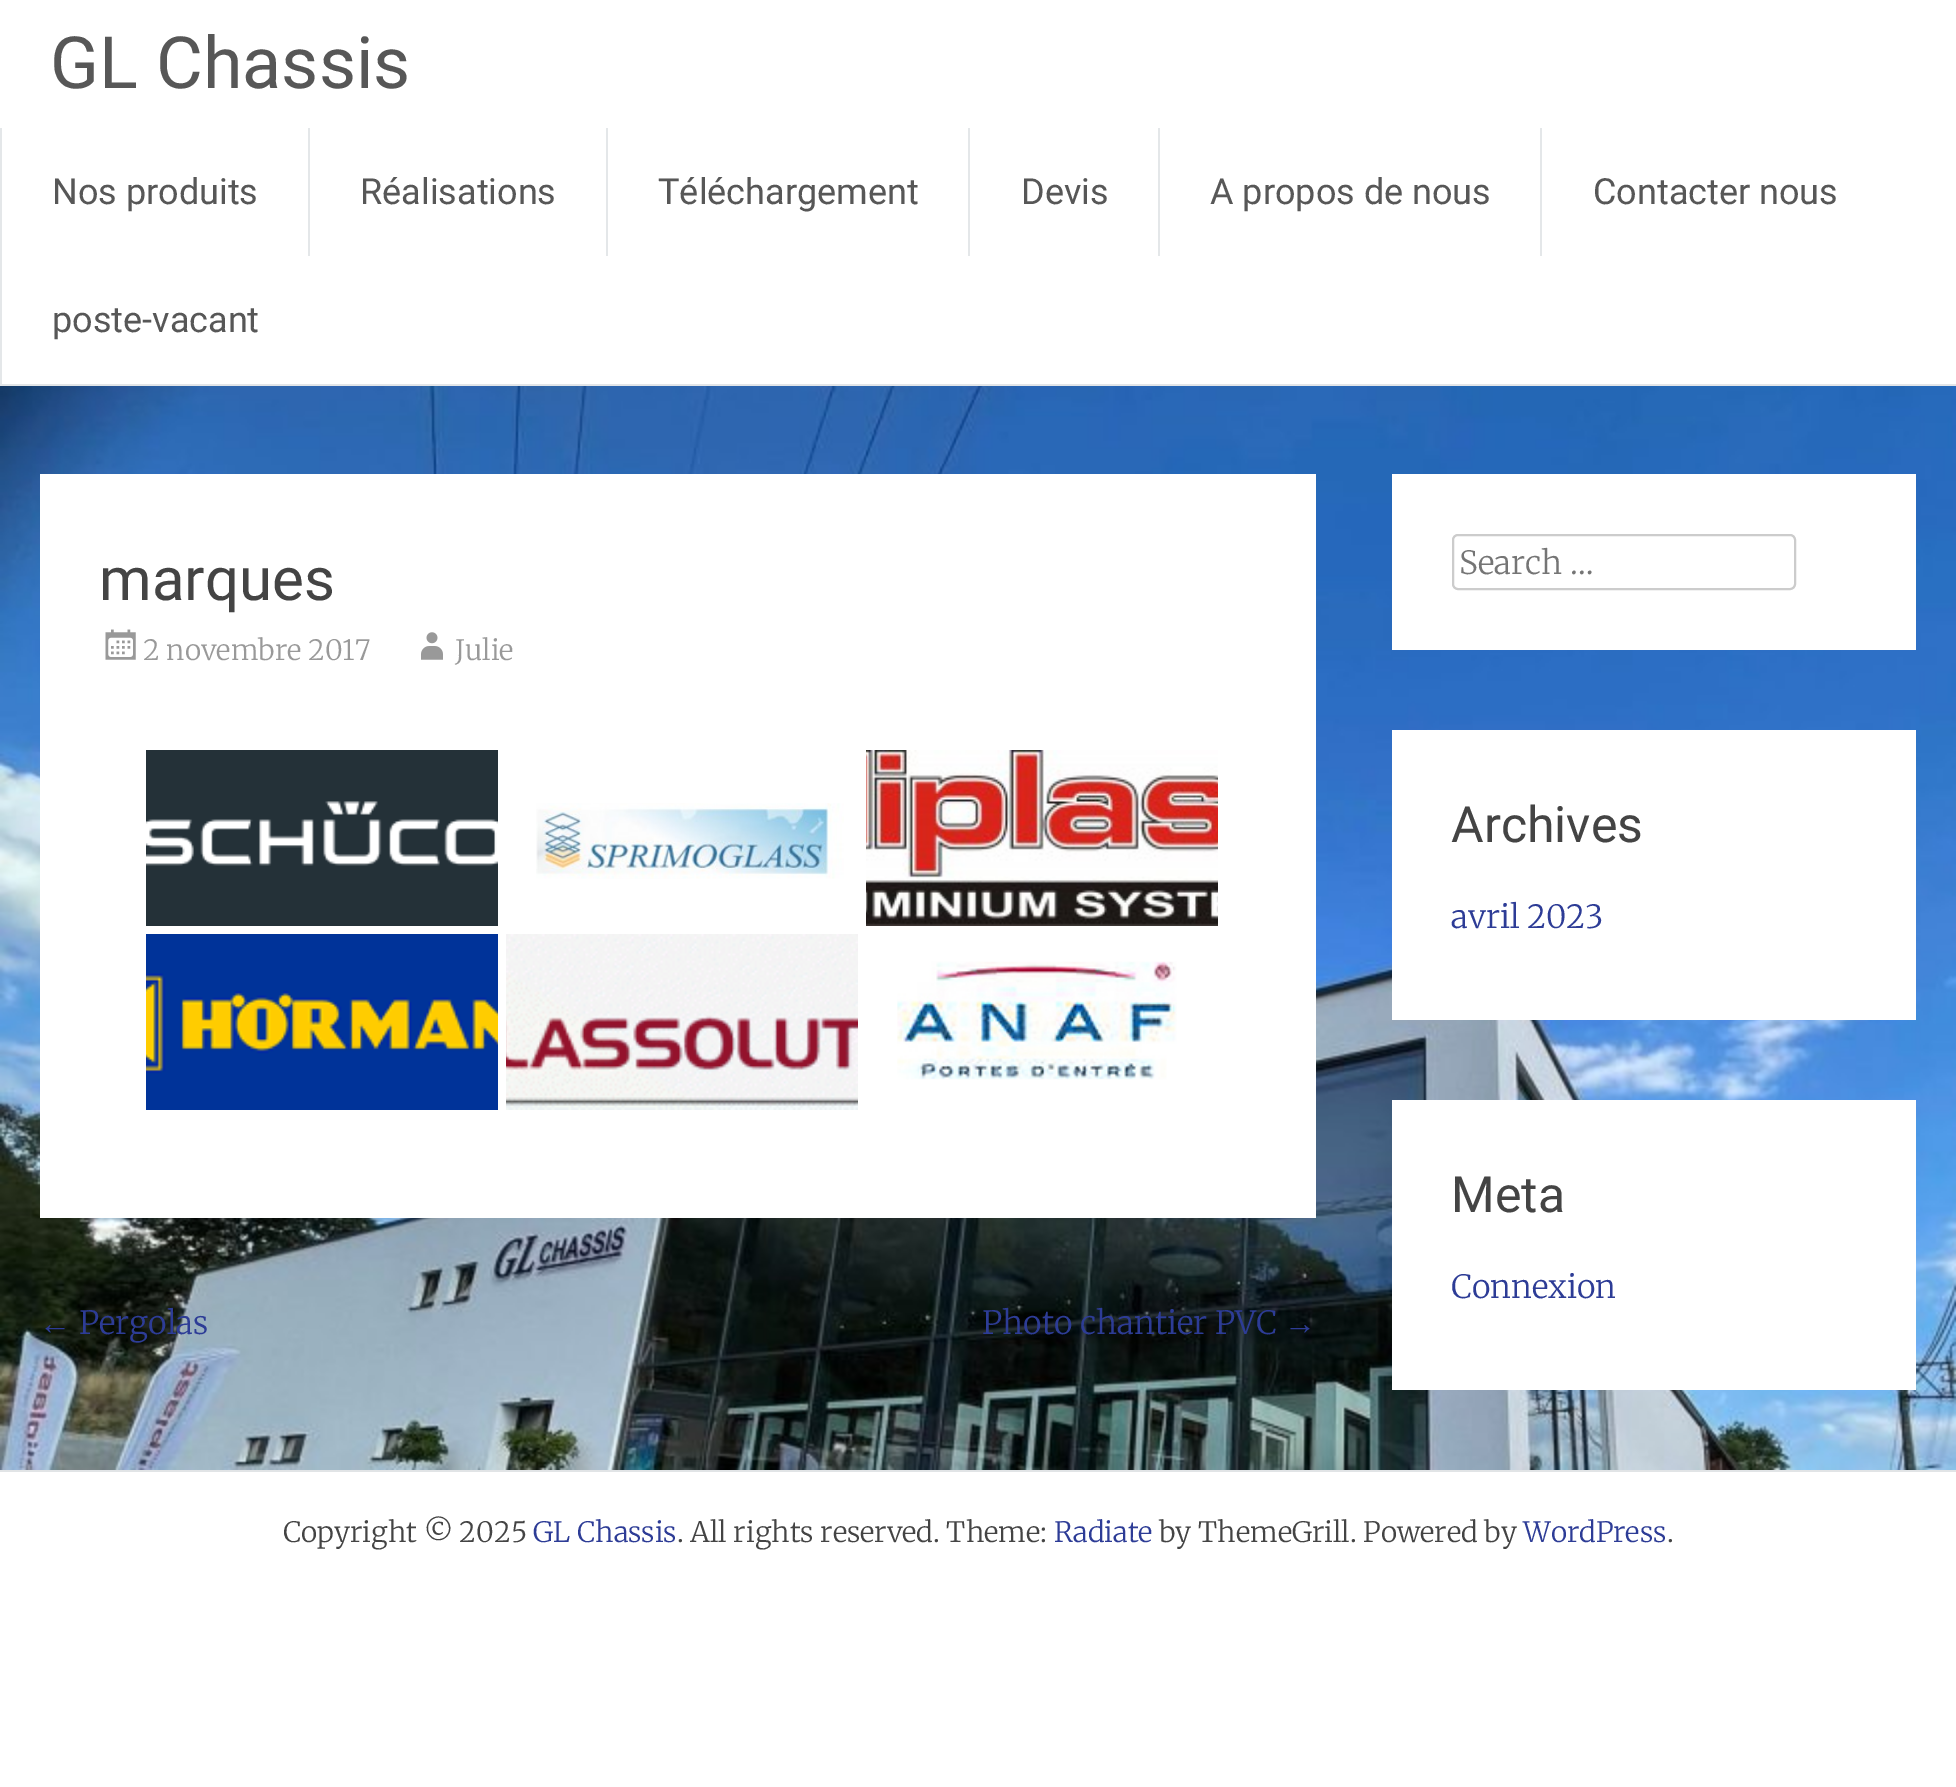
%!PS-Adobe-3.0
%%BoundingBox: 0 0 1956 1787
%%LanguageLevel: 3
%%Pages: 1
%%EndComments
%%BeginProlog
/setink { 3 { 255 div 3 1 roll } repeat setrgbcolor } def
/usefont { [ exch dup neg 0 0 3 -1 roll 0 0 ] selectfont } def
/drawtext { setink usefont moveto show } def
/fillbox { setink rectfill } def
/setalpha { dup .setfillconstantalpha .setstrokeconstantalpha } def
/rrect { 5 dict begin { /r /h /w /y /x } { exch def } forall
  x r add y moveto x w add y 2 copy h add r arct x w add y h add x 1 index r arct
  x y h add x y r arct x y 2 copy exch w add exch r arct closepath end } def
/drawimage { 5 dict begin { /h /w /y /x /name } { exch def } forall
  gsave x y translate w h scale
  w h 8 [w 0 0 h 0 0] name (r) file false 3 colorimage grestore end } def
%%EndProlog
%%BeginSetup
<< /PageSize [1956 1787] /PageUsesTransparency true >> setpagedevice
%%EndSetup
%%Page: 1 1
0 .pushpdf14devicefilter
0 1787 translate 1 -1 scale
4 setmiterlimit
0 0 1956 1787 255 255 255 fillbox
(assets/img1.rgb) 0 384 1956 1086 drawimage
0.9 setalpha
0 384 1956 2 255 255 255 fillbox
0 384 1956 2 225 228 230 fillbox
1 setalpha
(GL Chassis) 50 88 /Roboto-Regular 72 87 87 87 drawtext
0 128 2 256 228 231 233 fillbox
(Nos produits) 52 204 /Roboto-Regular 36 87 87 87 drawtext
308 128 2 128 228 231 233 fillbox
(Réalisations) 360 204 /Roboto-Regular 36 87 87 87 drawtext
606 128 2 128 228 231 233 fillbox
(Téléchargement) 658 204 /Roboto-Regular 36 87 87 87 drawtext
968 128 2 128 228 231 233 fillbox
(Devis) 1021 204 /Roboto-Regular 36 87 87 87 drawtext
1158 128 2 128 228 231 233 fillbox
(A propos de nous) 1210 204 /Roboto-Regular 36 87 87 87 drawtext
1540 128 2 128 228 231 233 fillbox
(Contacter nous) 1593 204 /Roboto-Regular 36 87 87 87 drawtext
(poste-vacant) 52 332 /Roboto-Regular 36 87 87 87 drawtext
40 474 1276 744 255 255 255 fillbox
(marques) 99 600 /Roboto-Regular 60 68 68 68 drawtext
(assets/img2.rgb) 105 629 31 31 drawimage
(2 novembre 2017) 143 660 /Merriweather-Light 28 153 153 153 drawtext
(assets/img3.rgb) 421 632 22 28 drawimage
(Julie) 455 660 /Merriweather-Light 28 153 153 153 drawtext
(assets/img4.rgb) 146 750 352 176 drawimage
(assets/img5.rgb) 536 803 308 76 drawimage
(assets/img6.rgb) 866 750 352 176 drawimage
(assets/img7.rgb) 146 934 352 176 drawimage
(assets/img8.rgb) 506 934 352 176 drawimage
(assets/img9.rgb) 897 961 280 119 drawimage
(←) 39 1334 /LiberationSerif-Regular 32 45 60 150 drawtext
(Pergolas) 79 1334 /Merriweather-Light 32 45 60 150 drawtext
(Photo chantier PVC) 982 1334 /Merriweather-Light 32 45 60 150 drawtext
(→) 1284 1334 /LiberationSerif-Regular 32 45 60 150 drawtext
1392 474 524 176 255 255 255 fillbox
204 204 204 setink
2 setlinewidth
1453 535 342 54 5 rrect stroke
(Search …) 1459 574 /Merriweather-Light 32 117 117 117 drawtext
1392 730 524 290 255 255 255 fillbox
(Archives) 1451 842 /Roboto-Regular 50 68 68 68 drawtext
(avril 2023) 1451 928 /Merriweather-Light 32 45 60 150 drawtext
1392 1100 524 290 255 255 255 fillbox
(Meta) 1451 1212 /Roboto-Regular 50 68 68 68 drawtext
(Connexion) 1451 1298 /Merriweather-Light 32 45 60 150 drawtext
0 1470 1956 2 225 228 230 fillbox
(Copyright © 2025) 283 1542 /Merriweather-Light 28 68 68 68 drawtext
(GL Chassis) 533 1542 /Merriweather-Light 28 45 60 150 drawtext
(. All rights reserved. Theme:) 677 1542 /Merriweather-Light 28 68 68 68 drawtext
(Radiate) 1054 1542 /Merriweather-Light 28 45 60 150 drawtext
(by ThemeGrill. Powered by) 1159 1542 /Merriweather-Light 28 68 68 68 drawtext
(WordPress) 1523 1542 /Merriweather-Light 28 45 60 150 drawtext
(.) 1667 1542 /Merriweather-Light 28 68 68 68 drawtext
.poppdf14devicefilter showpage
%%EOF
